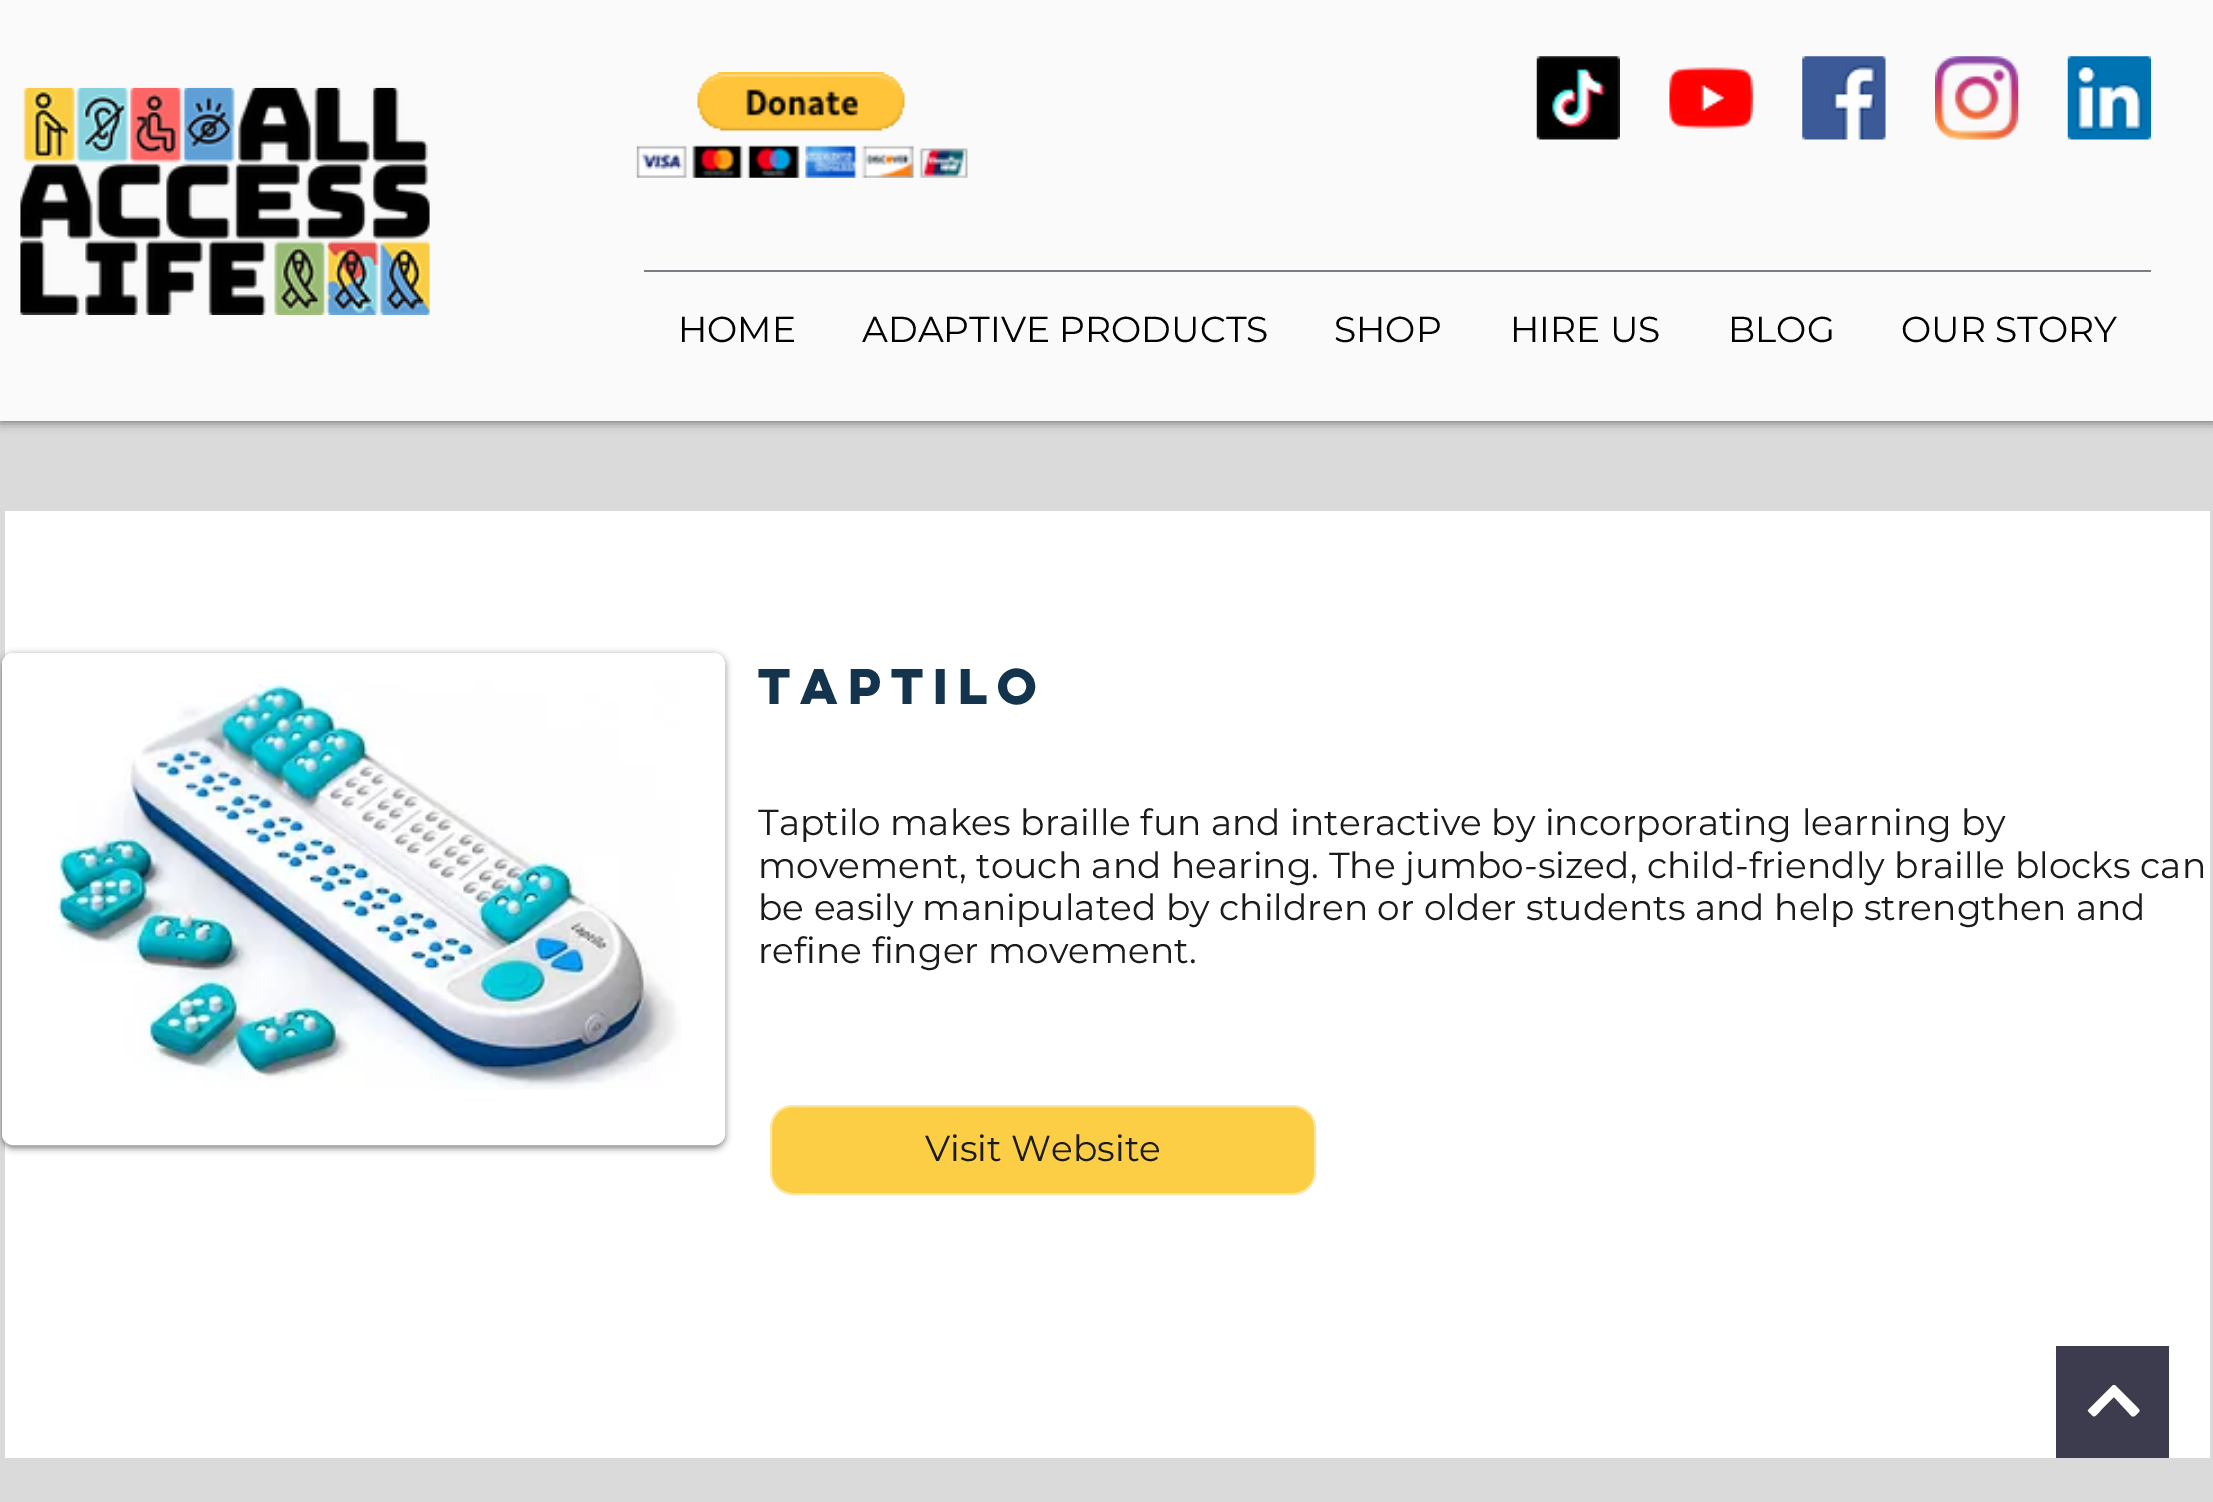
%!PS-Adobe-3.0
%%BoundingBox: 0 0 2213 1502
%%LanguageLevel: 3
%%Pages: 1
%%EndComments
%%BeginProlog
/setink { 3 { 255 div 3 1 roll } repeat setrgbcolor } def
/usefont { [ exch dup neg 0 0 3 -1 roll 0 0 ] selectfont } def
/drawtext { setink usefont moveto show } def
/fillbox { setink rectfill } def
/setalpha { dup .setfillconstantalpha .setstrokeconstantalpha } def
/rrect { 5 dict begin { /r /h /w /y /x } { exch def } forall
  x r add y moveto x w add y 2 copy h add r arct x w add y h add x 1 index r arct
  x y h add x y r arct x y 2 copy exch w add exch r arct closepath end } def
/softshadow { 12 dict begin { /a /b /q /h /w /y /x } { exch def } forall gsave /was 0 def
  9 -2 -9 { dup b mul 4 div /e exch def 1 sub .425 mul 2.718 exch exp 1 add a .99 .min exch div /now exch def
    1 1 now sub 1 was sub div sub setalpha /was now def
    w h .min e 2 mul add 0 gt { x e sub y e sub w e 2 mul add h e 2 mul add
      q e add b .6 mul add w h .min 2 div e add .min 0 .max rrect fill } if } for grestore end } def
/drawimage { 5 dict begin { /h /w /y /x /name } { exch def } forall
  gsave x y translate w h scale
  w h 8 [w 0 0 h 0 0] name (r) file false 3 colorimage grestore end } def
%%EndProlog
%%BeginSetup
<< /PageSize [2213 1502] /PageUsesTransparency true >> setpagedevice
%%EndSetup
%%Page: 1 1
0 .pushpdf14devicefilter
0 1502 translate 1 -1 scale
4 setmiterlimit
0 0 2213 1502 218 218 218 fillbox
0 0 0 setink
0 0 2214 421 0 5.5 0.6 softshadow
0 0 2213 421 250 250 250 fillbox
(assets/img1.rgb) 20 87 410 228 drawimage
(assets/img2.rgb) 636 72 332 106 drawimage
(assets/img3.rgb) 1536 56 84 84 drawimage
(assets/img4.rgb) 1669 67 84 62 drawimage
(assets/img5.rgb) 1802 56 84 84 drawimage
(assets/img6.rgb) 1935 56 84 84 drawimage
(assets/img7.rgb) 2067 56 84 84 drawimage
644 270 1507 2 124 124 131 fillbox
(HOME) 678 342 /Montserrat-Regular 36 0 0 0 drawtext
(ADAPTIVE PRODUCTS) 862 342 /Montserrat-Regular 36 0 0 0 drawtext
(SHOP) 1334 342 /Montserrat-Regular 36 0 0 0 drawtext
(HIRE US) 1510 342 /Montserrat-Regular 36 0 0 0 drawtext
(BLOG) 1728 342 /Montserrat-Regular 36 0 0 0 drawtext
(OUR STORY) 1901 342 /Montserrat-Regular 36 0 0 0 drawtext
5 511 2205 947 255 255 255 fillbox
0 0 0 setink
2 655 723 493 11 3.5 0.5 softshadow
255 255 255 setink
4.5 655.5 718 487 8.5 rrect gsave fill grestore
5 setlinewidth
stroke
(assets/img8.rgb) 55 680 626 410 drawimage
(Taptilo) 758 704 /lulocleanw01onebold-Bold 45 20 52 78 drawtext
(Taptilo makes braille fun and interactive by incorporating learning by) 758 835 /Montserrat-Regular 36 27 27 30 drawtext
(movement, touch and hearing. The jumbo-sized, child-friendly braille blocks can) 758 878 /Montserrat-Regular 36 27 27 30 drawtext
(be easily manipulated by children or older students and help strengthen and) 758 920 /Montserrat-Regular 36 27 27 30 drawtext
(refine finger movement.) 758 963 /Montserrat-Regular 36 27 27 30 drawtext
251 206 69 setink
771 1106 544 88 22 rrect gsave fill grestore
252 230 161 setink
2 setlinewidth
stroke
(Visit Website) 925 1161 /Montserrat-Regular 36 27 27 30 drawtext
2056 1346 113 112 60 60 78 fillbox
255 255 255 setink
2113 1385 moveto 2088 1410 lineto 2087 1411 2092 1415 2093 1416 curveto 2095 1418 2100 1411 2101 1410 curveto 2114 1397 lineto 2126 1410 lineto 2132 1416 2132 1419 2137 1414 curveto 2141 1410 2140 1411 2136 1406 curveto 2115 1385 lineto 2114 1385 2113 1385 2113 1385 curveto closepath fill
.poppdf14devicefilter showpage
%%EOF
